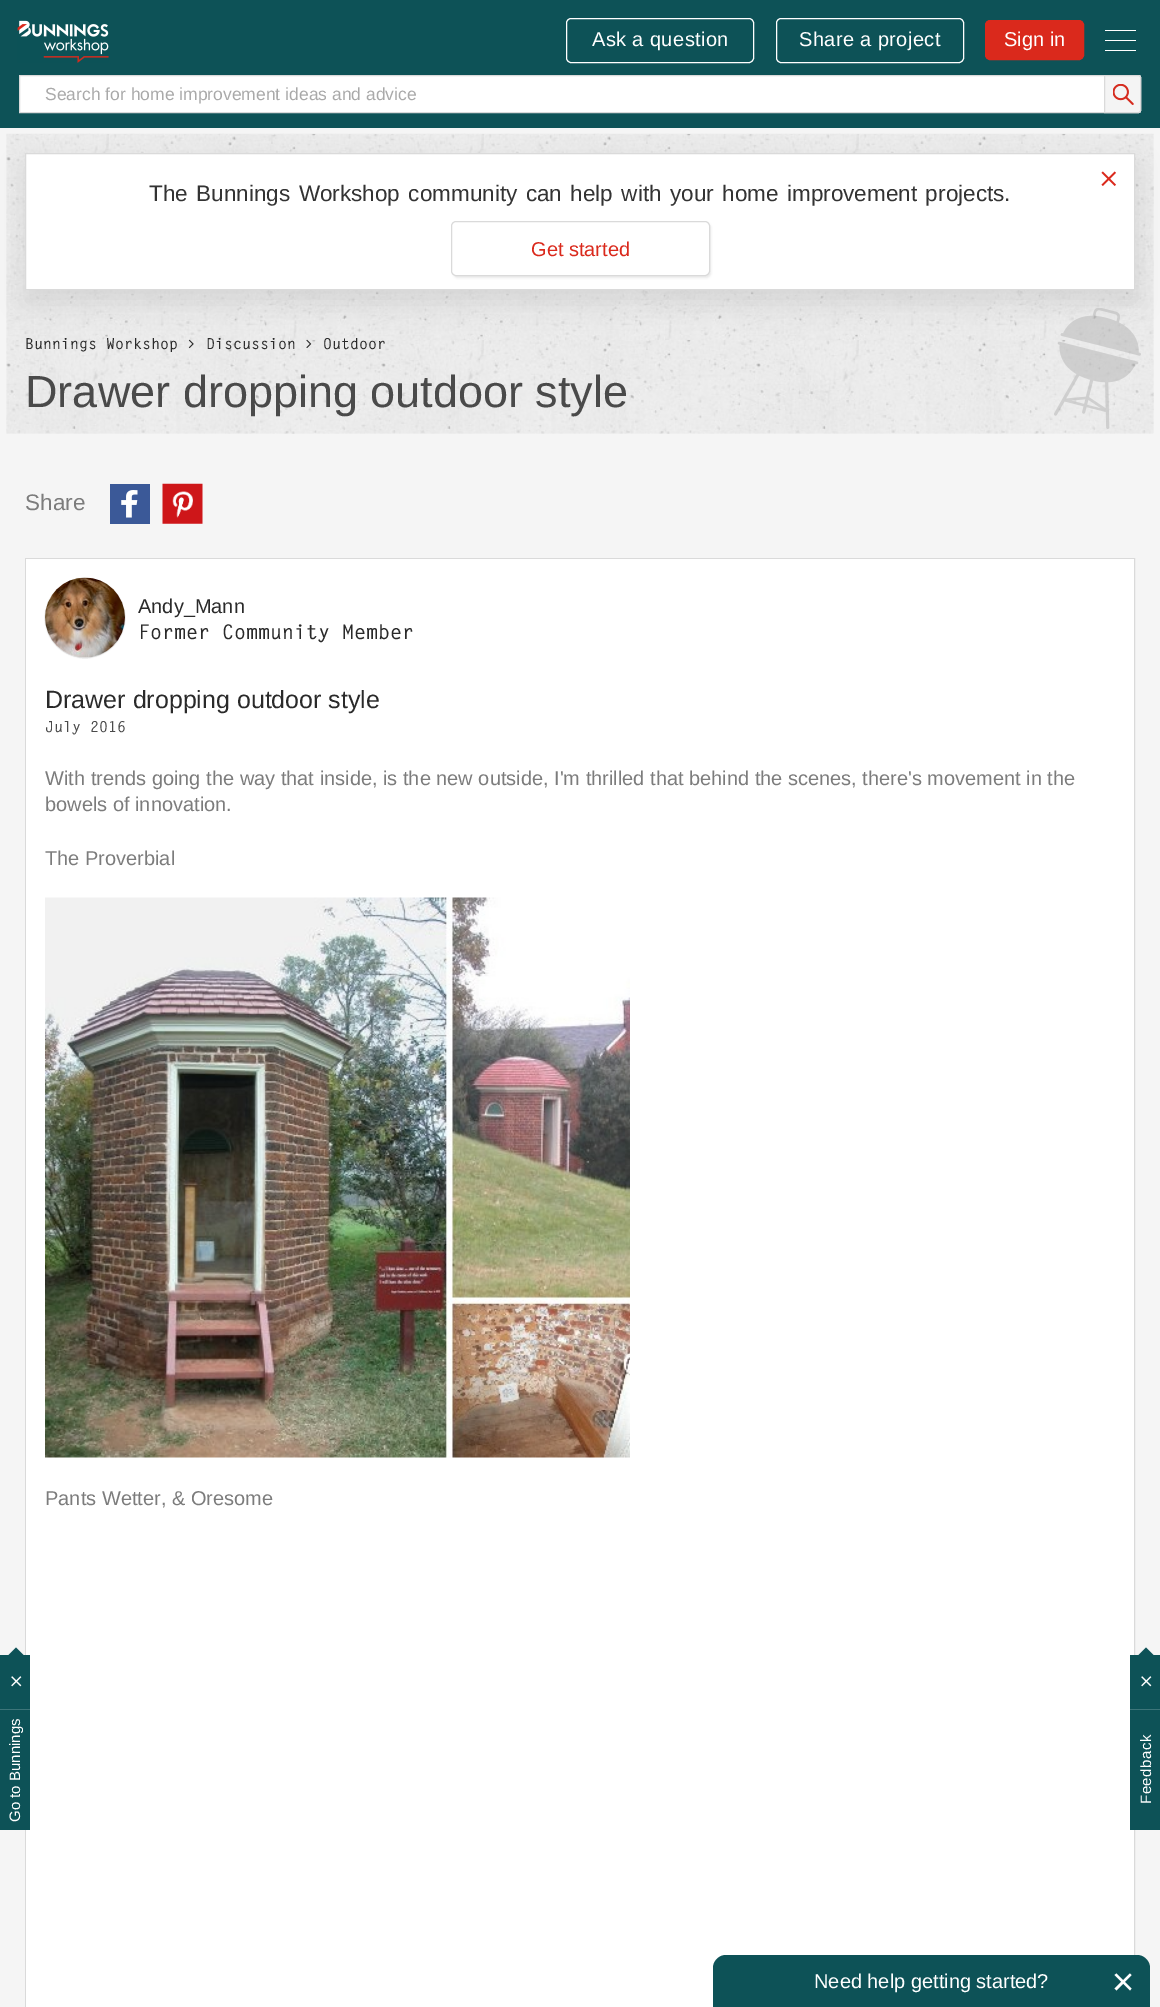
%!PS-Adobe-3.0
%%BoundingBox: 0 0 1160 2007
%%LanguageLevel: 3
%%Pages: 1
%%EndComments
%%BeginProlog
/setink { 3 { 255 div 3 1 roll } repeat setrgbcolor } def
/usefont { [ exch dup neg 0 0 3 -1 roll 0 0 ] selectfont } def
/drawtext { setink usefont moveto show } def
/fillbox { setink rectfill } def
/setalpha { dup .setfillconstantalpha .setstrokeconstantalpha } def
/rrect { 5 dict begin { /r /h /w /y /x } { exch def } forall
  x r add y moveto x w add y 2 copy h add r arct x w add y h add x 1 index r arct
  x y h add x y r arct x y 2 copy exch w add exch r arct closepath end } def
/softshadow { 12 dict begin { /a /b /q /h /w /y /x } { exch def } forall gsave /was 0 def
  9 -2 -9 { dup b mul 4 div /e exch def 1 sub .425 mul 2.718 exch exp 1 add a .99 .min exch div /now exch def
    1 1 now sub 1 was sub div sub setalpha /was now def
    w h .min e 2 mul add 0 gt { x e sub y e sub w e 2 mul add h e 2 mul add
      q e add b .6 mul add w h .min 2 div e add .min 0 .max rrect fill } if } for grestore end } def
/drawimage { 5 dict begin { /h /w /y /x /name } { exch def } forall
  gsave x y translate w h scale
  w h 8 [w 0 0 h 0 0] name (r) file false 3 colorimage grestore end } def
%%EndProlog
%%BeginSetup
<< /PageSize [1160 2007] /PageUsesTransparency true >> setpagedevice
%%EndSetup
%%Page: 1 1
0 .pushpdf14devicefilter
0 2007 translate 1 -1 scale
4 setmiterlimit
0 0 1160 2007 245 245 245 fillbox
218 218 218 setink
25.5 558.5 1109 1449 rectstroke
26 559 1108 1448 255 255 255 fillbox
0 1655 30 175 13 82 87 fillbox
26 1657.5 moveto 6 1657.5 lineto 16 1647.5 lineto closepath fill
(assets/img1.rgb) 11 1676 11 11 drawimage
0 1709 30 1 61 117 121 fillbox
/LiberationSans-Regular 15 usefont
255 255 255 setink
gsave 20 1822 translate -90 rotate 0 0 moveto (Go to Bunnings) show grestore
6 134 1148 300 251 251 251 fillbox
(assets/img4.rgb) 6 133 1148 301 drawimage
0 0 0 setink
26 165 1110 138 0 12.5 0.08 softshadow
0 0 1160 128 13 82 87 fillbox
(assets/img2.rgb) 17 20 92 43 drawimage
1105 30 31 1 255 255 255 fillbox
1105 40 31 1 255 255 255 fillbox
1105 50 31 1 255 255 255 fillbox
566.5 18.5 187 44 4.5 rrect stroke
/LiberationSans-Regular 20 usefont
592 46 moveto 0.4 0 (Ask a question) ashow
776.5 18.5 187 44 4.5 rrect stroke
799 46 moveto 0.4 0 (Share a project) ashow
218 41 28 setink
985.5 20.5 98 39 4.5 rrect gsave fill grestore
stroke
(Sign in) 1004 46 /LiberationSans-Regular 20 255 255 255 drawtext
19.5 75.5 moveto 1138.5 75.5 lineto 1139.5 75.5 1140.5 76.5 1140.5 77.5 curveto 1140.5 110.5 lineto 1140.5 111.5 1139.5 112.5 1138.5 112.5 curveto 19.5 112.5 lineto closepath gsave fill grestore
218 218 218 setink
stroke
(Search for home improvement ideas and advice) 45 100 /LiberationSans-Regular 17.5 169 169 169 drawtext
244 244 244 setink
1104 75 moveto 1138.5 75 lineto 1140 75 1141 76 1141 77.5 curveto 1141 110.5 lineto 1141 112 1140 113 1138.5 113 curveto 1104 113 lineto closepath fill
(assets/img3.rgb) 1113 84 21 21 drawimage
218 218 218 setink
1104.5 75.5 moveto 1138.5 75.5 lineto 1139.5 75.5 1140.5 76.5 1140.5 77.5 curveto 1140.5 110.5 lineto 1140.5 111.5 1139.5 112.5 1138.5 112.5 curveto 1104.5 112.5 lineto closepath stroke
255 255 255 setink
25.5 153.5 moveto 1134.5 153.5 lineto 1134.5 289.5 lineto 25.5 289.5 lineto closepath gsave fill grestore
218 218 218 setink
stroke
(assets/img5.rgb) 1101 171 15 15 drawimage
/LiberationSans-Regular 22.5 usefont
51 51 51 setink
149 201 moveto 2.25 0 32 (The Bunnings Workshop community can help with your home improvement projects.) widthshow
0 0 0 setink
453 223 258 55 5 1 0.08 softshadow
255 255 255 setink
451.5 221.5 258 54 4.5 rrect gsave fill grestore
218 218 218 setink
stroke
(Get started) 531 256 /LiberationSans-Regular 20 218 41 28 drawtext
(Bunnings Workshop) 25 349 /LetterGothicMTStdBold-Bold 15 42 42 42 drawtext
(assets/img6.rgb) 188 339 6 10 drawimage
(Discussion) 206 349 /LetterGothicMTStdBold-Bold 15 42 42 42 drawtext
(assets/img7.rgb) 306 339 6 9 drawimage
(Outdoor) 323 349 /LetterGothicMTStdBold-Bold 15 42 42 42 drawtext
(assets/img8.rgb) 1054 308 87 121 drawimage
(Drawer dropping outdoor style) 25 407 /LiberationSans-Regular 45 74 74 74 drawtext
(Share) 25 510 /LiberationSans-Regular 22.5 124 124 124 drawtext
110 484 40 40 59 89 152 fillbox
(assets/img9.rgb) 121 490 17 28 drawimage
(assets/img10.rgb) 162 483 41 41 drawimage
196 196 196 setink
45 578 80 80 40 0.5 1 softshadow
(assets/img11.rgb) 45 577 80 81 drawimage
(Andy_Mann) 138 613 /LiberationSans-Regular 20 42 42 42 drawtext
(Former Community Member) 138 639 /LetterGothicMTStdBold-Bold 20 42 42 42 drawtext
(Drawer dropping outdoor style) 45 708 /LiberationSans-Regular 25 42 42 42 drawtext
(July 2016) 45 732 /LetterGothicMTStdBold-Bold 15 74 74 74 drawtext
(With trends going the way that inside, is the new outside, I'm thrilled that behind the scenes, there's movement in the) 45 785 /LiberationSans-Regular 20 124 124 124 drawtext
(bowels of innovation.) 45 811 /LiberationSans-Regular 20 124 124 124 drawtext
(The Proverbial) 45 865 /LiberationSans-Regular 20 124 124 124 drawtext
(assets/img12.rgb) 45 897 585 561 drawimage
(Pants Wetter, & Oresome) 45 1505 /LiberationSans-Regular 20 124 124 124 drawtext
13 82 87 setink
726 1955 moveto 1137 1955 lineto 1144 1955 1150 1961 1150 1968 curveto 1150 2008 lineto 713 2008 lineto 713 1968 lineto 713 1961 719 1955 726 1955 curveto closepath fill
(Need help getting started?) 814 1988 /LiberationSans-Regular 20 255 255 255 drawtext
1114.5 1988.5 moveto 1116.5 1990.5 lineto 1131.5 1975 lineto 1130 1973.5 lineto closepath fill
1114.5 1975 moveto 1130 1990.5 lineto 1131.5 1988.5 lineto 1116.5 1973.5 lineto closepath fill
1130 1655 30 175 13 82 87 fillbox
1156 1657.5 moveto 1136 1657.5 lineto 1146 1647.5 lineto closepath fill
(assets/img1.rgb) 1141 1676 11 11 drawimage
1130 1709 30 1 61 117 121 fillbox
/LiberationSans-Regular 15 usefont
255 255 255 setink
gsave 1151 1804 translate -90 rotate 0 0 moveto 0.5 0 (Feedback) ashow grestore
.poppdf14devicefilter showpage
%%EOF
